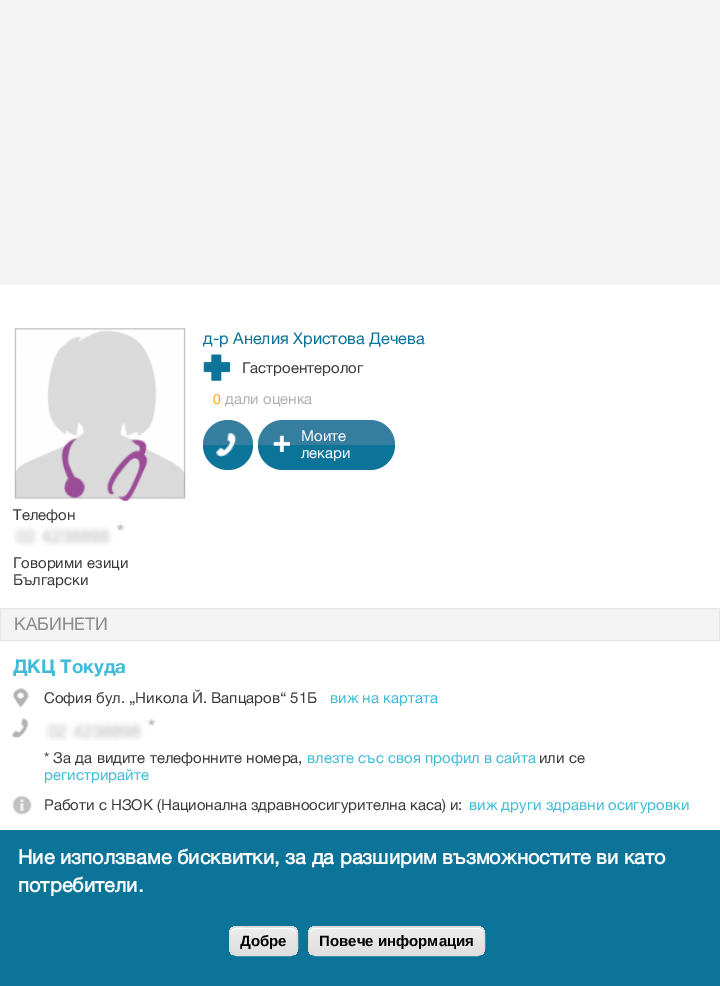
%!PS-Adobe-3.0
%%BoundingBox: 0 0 720 986
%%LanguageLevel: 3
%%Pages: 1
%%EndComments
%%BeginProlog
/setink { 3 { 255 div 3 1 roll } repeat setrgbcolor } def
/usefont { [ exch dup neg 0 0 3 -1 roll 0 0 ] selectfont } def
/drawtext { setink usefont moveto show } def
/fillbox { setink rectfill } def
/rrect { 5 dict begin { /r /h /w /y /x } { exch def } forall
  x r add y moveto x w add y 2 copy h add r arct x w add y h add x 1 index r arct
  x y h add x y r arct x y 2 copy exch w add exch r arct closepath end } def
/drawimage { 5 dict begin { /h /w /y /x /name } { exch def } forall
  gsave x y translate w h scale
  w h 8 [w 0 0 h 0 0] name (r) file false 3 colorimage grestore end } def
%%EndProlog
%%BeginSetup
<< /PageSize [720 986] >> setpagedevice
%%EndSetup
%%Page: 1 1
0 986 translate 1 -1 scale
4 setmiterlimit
0 0 720 986 243 243 243 fillbox
0 285 720 545 255 255 255 fillbox
(assets/img1.rgb) 14 328 172 173 drawimage
(д-р Анелия Христова Дечева) 203 344 /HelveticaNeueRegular-Regular 16.25 13 116 153 drawtext
(assets/img2.rgb) 203 354 28 27 drawimage
(Гастроентеролог) 242 373 /HelveticaNeueRegular-Regular 15 58 58 58 drawtext
(0) 213 404 /HelveticaNeueRegular-Regular 14 252 170 26 drawtext
(дали оценка) 225 404 /HelveticaNeueRegular-Regular 15 177 177 177 drawtext
54 126 160 setink
228 420 moveto 242 420 253 431 253 445 curveto 203 445 lineto 203 431 214 420 228 420 curveto closepath fill
13 116 153 setink
203 445 moveto 253 445 lineto 253 459 242 470 228 470 curveto 214 470 203 459 203 445 curveto closepath fill
(assets/img3.rgb) 216 433 21 24 drawimage
54 126 160 setink
283 420 moveto 370 420 lineto 384 420 395 431 395 445 curveto 258 445 lineto 258 431 269 420 283 420 curveto closepath fill
13 116 153 setink
258 445 moveto 395 445 lineto 395 459 384 470 370 470 curveto 283 470 lineto 269 470 258 459 258 445 curveto closepath fill
(assets/img4.rgb) 273 435 17 17 drawimage
(Моите) 301 441 /HelveticaNeueRegular-Regular 15 255 255 255 drawtext
(лекари) 301 458 /HelveticaNeueRegular-Regular 15 255 255 255 drawtext
(Телефон) 13 520 /HelveticaNeueRegular-Regular 15 58 58 58 drawtext
(assets/img5.rgb) 13 523 111 23 drawimage
(Говорими езици) 13 568 /HelveticaNeueRegular-Regular 15 58 58 58 drawtext
(Български) 13 585 /HelveticaNeueRegular-Regular 15 58 58 58 drawtext
243 243 243 setink
0.5 608.5 moveto 719.5 608.5 lineto 719.5 640.5 lineto 0.5 640.5 lineto closepath gsave fill grestore
231 231 231 setink
stroke
(КАБИНЕТИ) 14 630 /HelveticaNeueRegular-Regular 17.5 142 142 142 drawtext
(ДКЦ Токуда) 13 673 /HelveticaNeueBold-Bold 18.75 65 187 216 drawtext
(assets/img6.rgb) 12 688 17 19 drawimage
(София бул. „Никола Й. Вапцаров“ 51Б) 44 703 /HelveticaNeueRegular-Regular 15 58 58 58 drawtext
(виж на картата) 330 703 /HelveticaNeueRegular-Regular 15 65 187 216 drawtext
(assets/img7.rgb) 12 718 17 21 drawimage
(assets/img8.rgb) 45 718 110 23 drawimage
(* За да видите телефонните номера,) 44 763 /HelveticaNeueRegular-Regular 15 58 58 58 drawtext
(влезте със своя профил в сайта) 307 763 /HelveticaNeueRegular-Regular 15 65 187 216 drawtext
(или се) 539 763 /HelveticaNeueRegular-Regular 15 58 58 58 drawtext
(регистрирайте) 44 780 /HelveticaNeueRegular-Regular 15 65 187 216 drawtext
(assets/img9.rgb) 12 795 20 20 drawimage
(Работи с НЗОК \(Национална здравноосигурителна каса\) и:) 44 810 /HelveticaNeueRegular-Regular 15 58 58 58 drawtext
(виж други здравни осигуровки) 469 810 /HelveticaNeueRegular-Regular 15 65 187 216 drawtext
0 830 720 156 13 116 153 fillbox
(Ние използваме бисквитки, за да разширим възможностите ви като) 18 864 /HelveticaNeueRegular-Bold 20 255 255 255 drawtext
(потребители.) 18 892 /HelveticaNeueRegular-Bold 20 255 255 255 drawtext
gsave
229 926 69 30 8 rrect clip newpath
gsave 229 926 moveto 298 926 lineto 298 928 lineto 229 928 lineto closepath clip newpath
<< /ShadingType 2 /ColorSpace /DeviceRGB /Coords [230 900 230 928] /Extend [true true] /Function << /FunctionType 3 /Domain [0 1] /Functions [<< /FunctionType 2 /Domain [0 1] /C0 [0.929 0.929 0.929] /C1 [0.929 0.929 0.929] /N 1 >> << /FunctionType 2 /Domain [0 1] /C0 [0.929 0.929 0.929] /C1 [0.875 0.875 0.875] /N 1 >>] /Bounds [0.05] /Encode [0 1 0 1] >> >> shfill grestore
gsave 229 928 moveto 298 928 lineto 298 955 lineto 229 955 lineto closepath clip newpath
<< /ShadingType 2 /ColorSpace /DeviceRGB /Coords [230 928 230 955] /Extend [true true] /Function << /FunctionType 3 /Domain [0 1] /Functions [<< /FunctionType 2 /Domain [0 1] /C0 [0.929 0.929 0.929] /C1 [0.929 0.929 0.929] /N 1 >> << /FunctionType 2 /Domain [0 1] /C0 [0.929 0.929 0.929] /C1 [0.875 0.875 0.875] /N 1 >>] /Bounds [0.05] /Encode [0 1 0 1] >> >> shfill grestore
grestore
236 929 moveto 290 929 lineto 293 929 296 932 296 935 curveto 296 926 288 928 281 928 curveto 245 928 lineto 238 928 230 926 230 935 curveto 230 932 233 929 236 929 curveto closepath fill
220 220 220 setink
229.5 926.5 68 29 7.5 rrect stroke
(Добре) 240 946 /LiberationSans-Bold 15 0 0 0 drawtext
gsave
308 926 177 30 8 rrect clip newpath
gsave 308 926 moveto 485 926 lineto 485 928 lineto 308 928 lineto closepath clip newpath
<< /ShadingType 2 /ColorSpace /DeviceRGB /Coords [309 900 309 928] /Extend [true true] /Function << /FunctionType 3 /Domain [0 1] /Functions [<< /FunctionType 2 /Domain [0 1] /C0 [0.929 0.929 0.929] /C1 [0.929 0.929 0.929] /N 1 >> << /FunctionType 2 /Domain [0 1] /C0 [0.929 0.929 0.929] /C1 [0.875 0.875 0.875] /N 1 >>] /Bounds [0.05] /Encode [0 1 0 1] >> >> shfill grestore
gsave 308 928 moveto 485 928 lineto 485 955 lineto 308 955 lineto closepath clip newpath
<< /ShadingType 2 /ColorSpace /DeviceRGB /Coords [309 928 309 955] /Extend [true true] /Function << /FunctionType 3 /Domain [0 1] /Functions [<< /FunctionType 2 /Domain [0 1] /C0 [0.929 0.929 0.929] /C1 [0.929 0.929 0.929] /N 1 >> << /FunctionType 2 /Domain [0 1] /C0 [0.929 0.929 0.929] /C1 [0.875 0.875 0.875] /N 1 >>] /Bounds [0.05] /Encode [0 1 0 1] >> >> shfill grestore
grestore
255 255 255 setink
315 929 moveto 478 929 lineto 481 929 484 932 484 935 curveto 484 934 lineto 484 931 481 928 478 928 curveto 315 928 lineto 312 928 309 931 309 934 curveto 309 935 lineto 309 932 312 929 315 929 curveto closepath fill
220 220 220 setink
308.5 926.5 176 29 7.5 rrect stroke
(Повече информация) 319 946 /LiberationSans-Bold 15 0 0 0 drawtext
showpage
%%EOF
